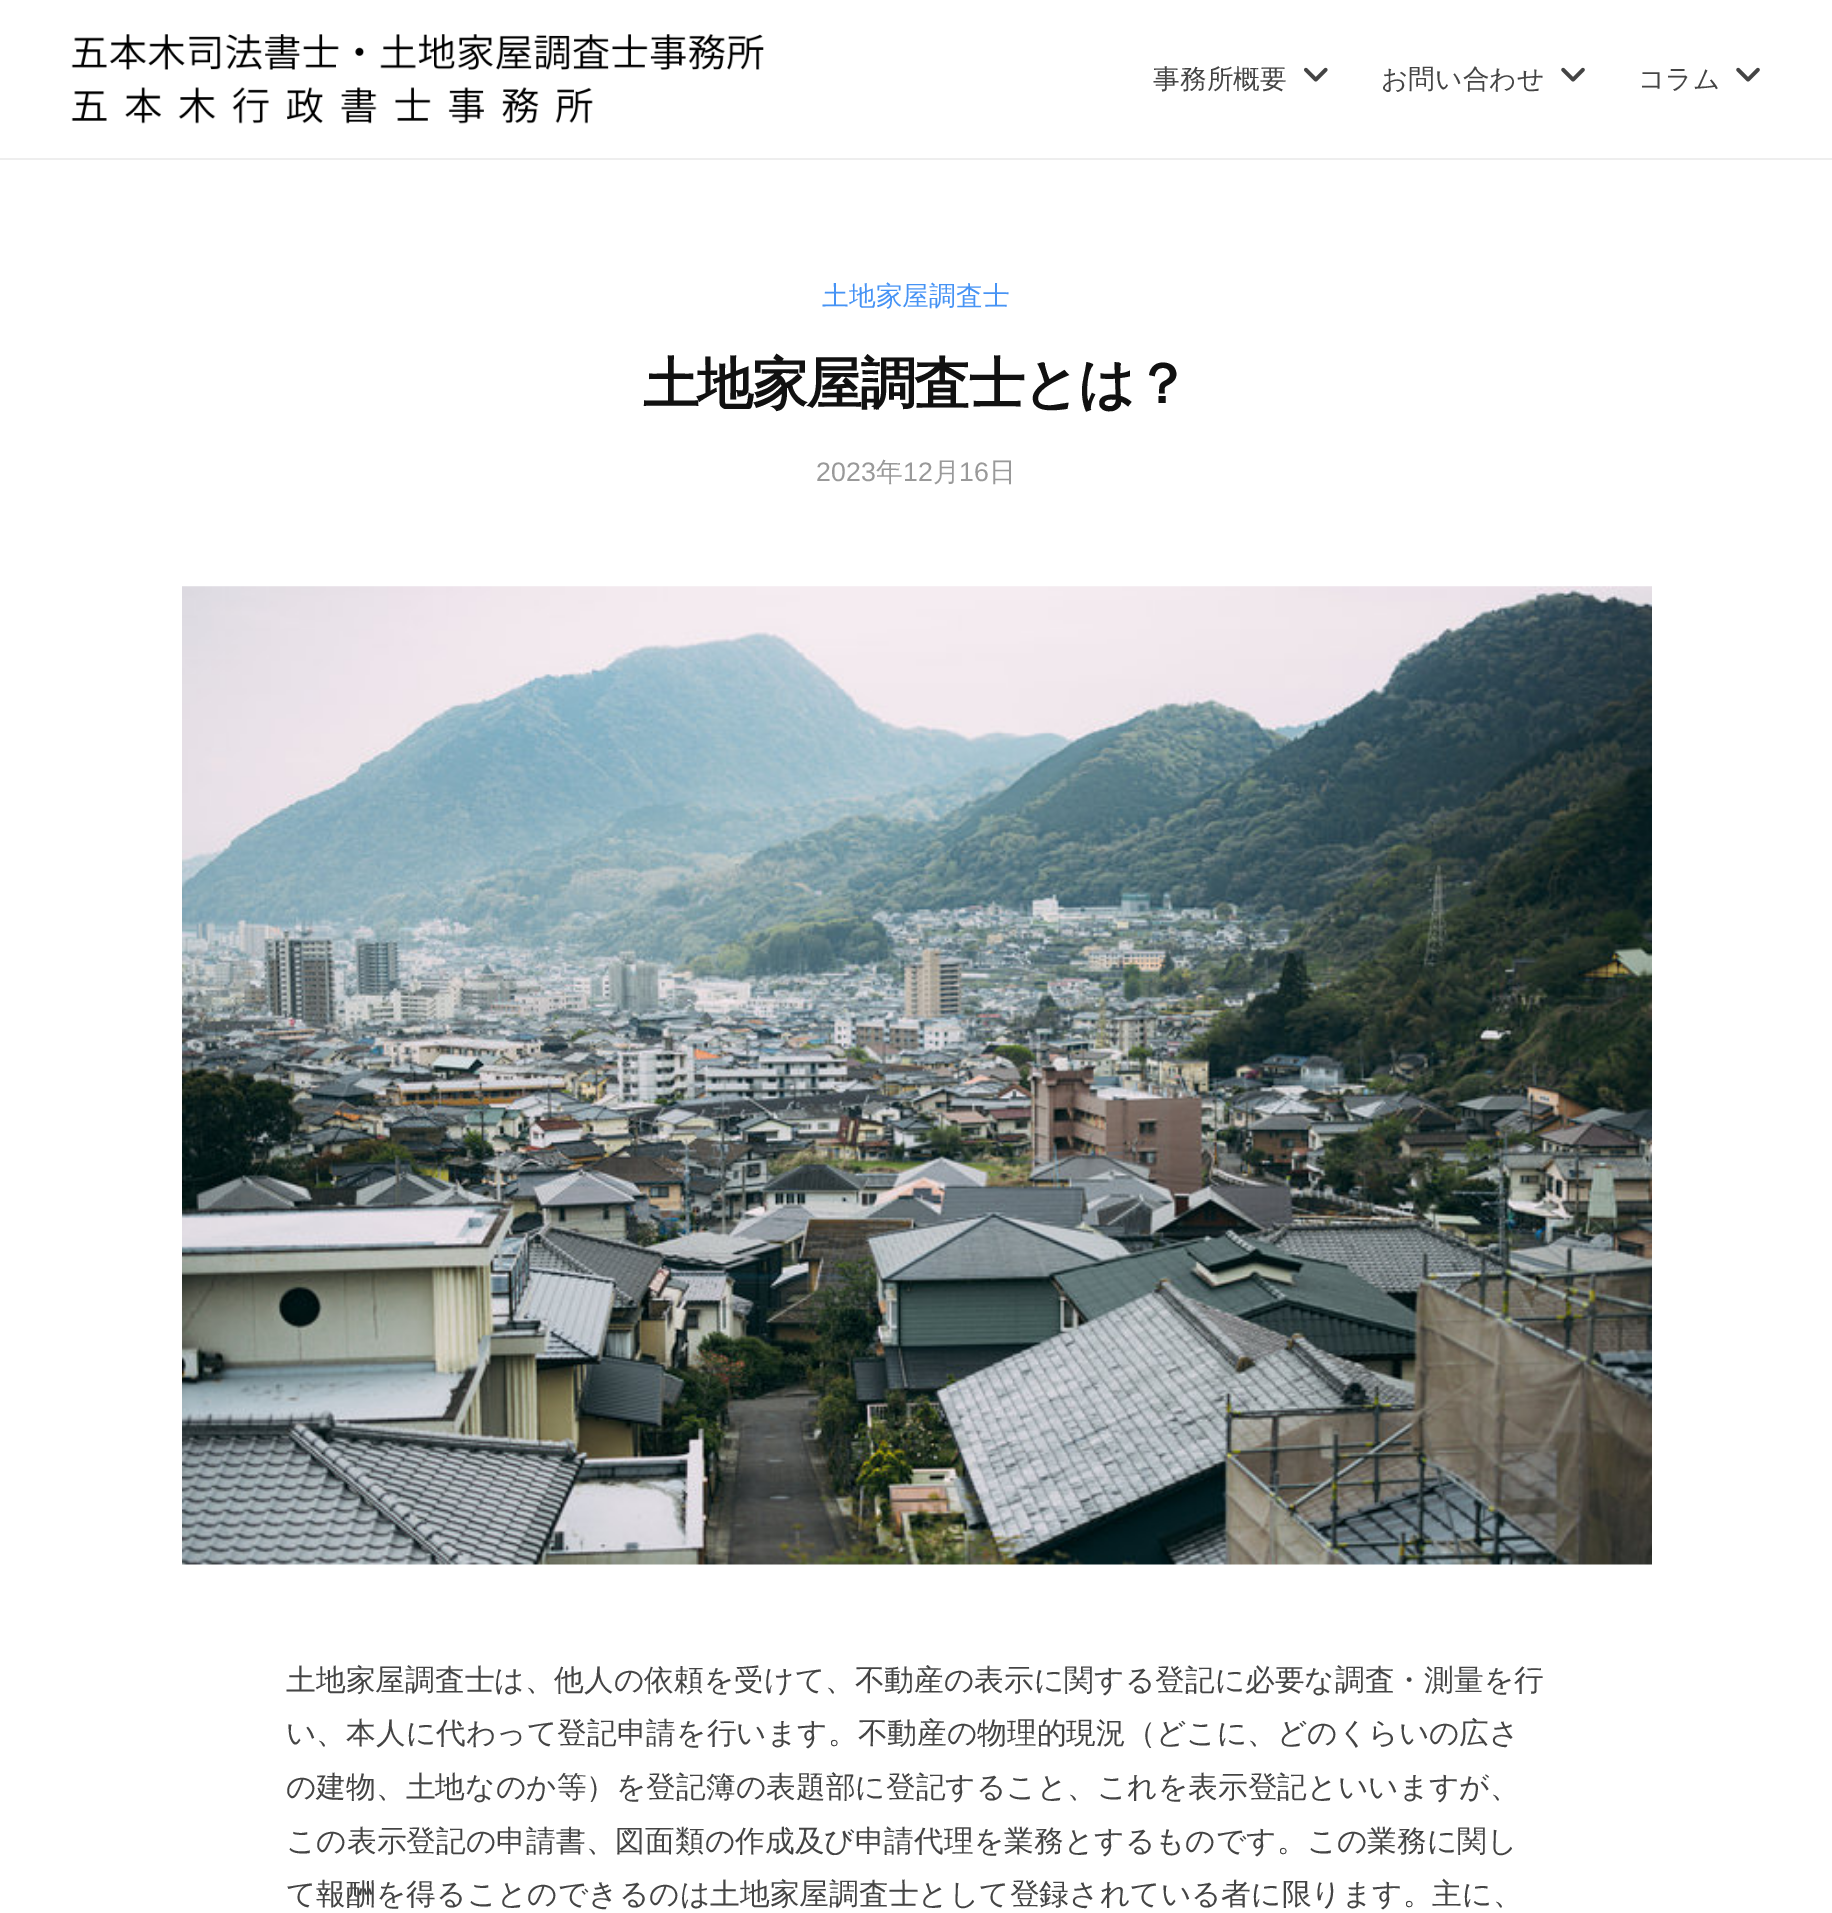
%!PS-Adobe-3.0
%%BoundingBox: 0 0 1832 1913
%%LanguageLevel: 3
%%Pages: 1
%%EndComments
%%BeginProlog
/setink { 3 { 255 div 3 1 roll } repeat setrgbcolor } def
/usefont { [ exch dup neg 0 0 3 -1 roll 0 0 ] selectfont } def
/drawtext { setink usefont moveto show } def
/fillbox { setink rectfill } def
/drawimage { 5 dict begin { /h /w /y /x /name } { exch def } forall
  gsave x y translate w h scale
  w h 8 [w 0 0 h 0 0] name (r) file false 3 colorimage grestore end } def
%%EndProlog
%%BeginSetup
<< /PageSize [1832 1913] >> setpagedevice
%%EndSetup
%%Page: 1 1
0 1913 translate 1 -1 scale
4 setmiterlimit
0 0 1832 1913 255 255 255 fillbox
0 158 1832 2 238 238 238 fillbox
(assets/img1.rgb) 71 34 693 90 drawimage
(事務所概要) 1153 88 /WenQuanYiZenHei-Medium 26.75 68 68 68 drawtext
(assets/img2.rgb) 1304 67 24 15 drawimage
(お問い合わせ) 1381 88 /WenQuanYiZenHei-Medium 26.75 68 68 68 drawtext
(assets/img3.rgb) 1561 67 24 15 drawimage
(コラム) 1638 88 /WenQuanYiZenHei-Medium 26.75 68 68 68 drawtext
(assets/img3.rgb) 1736 67 24 15 drawimage
(土地家屋調査士) 822 305 /WenQuanYiZenHei-Medium 26.75 70 147 245 drawtext
/WenQuanYiZenHei-Bold 56 usefont
17 17 17 setink
643 403 moveto -1.75 0 (土地家屋調査士とは？) ashow
(2023) 816 481 /LiberationSans-Regular 26.75 153 153 153 drawtext
(年) 876 481 /WenQuanYiZenHei-Medium 26.75 153 153 153 drawtext
(12) 903 481 /LiberationSans-Regular 26.75 153 153 153 drawtext
(月) 933 481 /WenQuanYiZenHei-Medium 26.75 153 153 153 drawtext
(16) 959 481 /LiberationSans-Regular 26.75 153 153 153 drawtext
(日) 989 481 /WenQuanYiZenHei-Medium 26.75 153 153 153 drawtext
(assets/img4.rgb) 182 586 1470 979 drawimage
(土地家屋調査士は、他人の依頼を受けて、不動産の表示に関する登記に必要な調査・測量を行) 286 1690 /WenQuanYiZenHei-Medium 29.75 68 68 68 drawtext
(い、本人に代わって登記申請を行います。不動産の物理的現況（どこに、どのくらいの広さ) 286 1743 /WenQuanYiZenHei-Medium 29.75 68 68 68 drawtext
(の建物、土地なのか等）を登記簿の表題部に登記すること、これを表示登記といいますが、) 286 1797 /WenQuanYiZenHei-Medium 29.75 68 68 68 drawtext
(この表示登記の申請書、図面類の作成及び申請代理を業務とするものです。この業務に関し) 286 1851 /WenQuanYiZenHei-Medium 29.75 68 68 68 drawtext
(て報酬を得ることのできるのは土地家屋調査士として登録されている者に限ります。主に、) 286 1904 /WenQuanYiZenHei-Medium 29.75 68 68 68 drawtext
showpage
%%EOF
